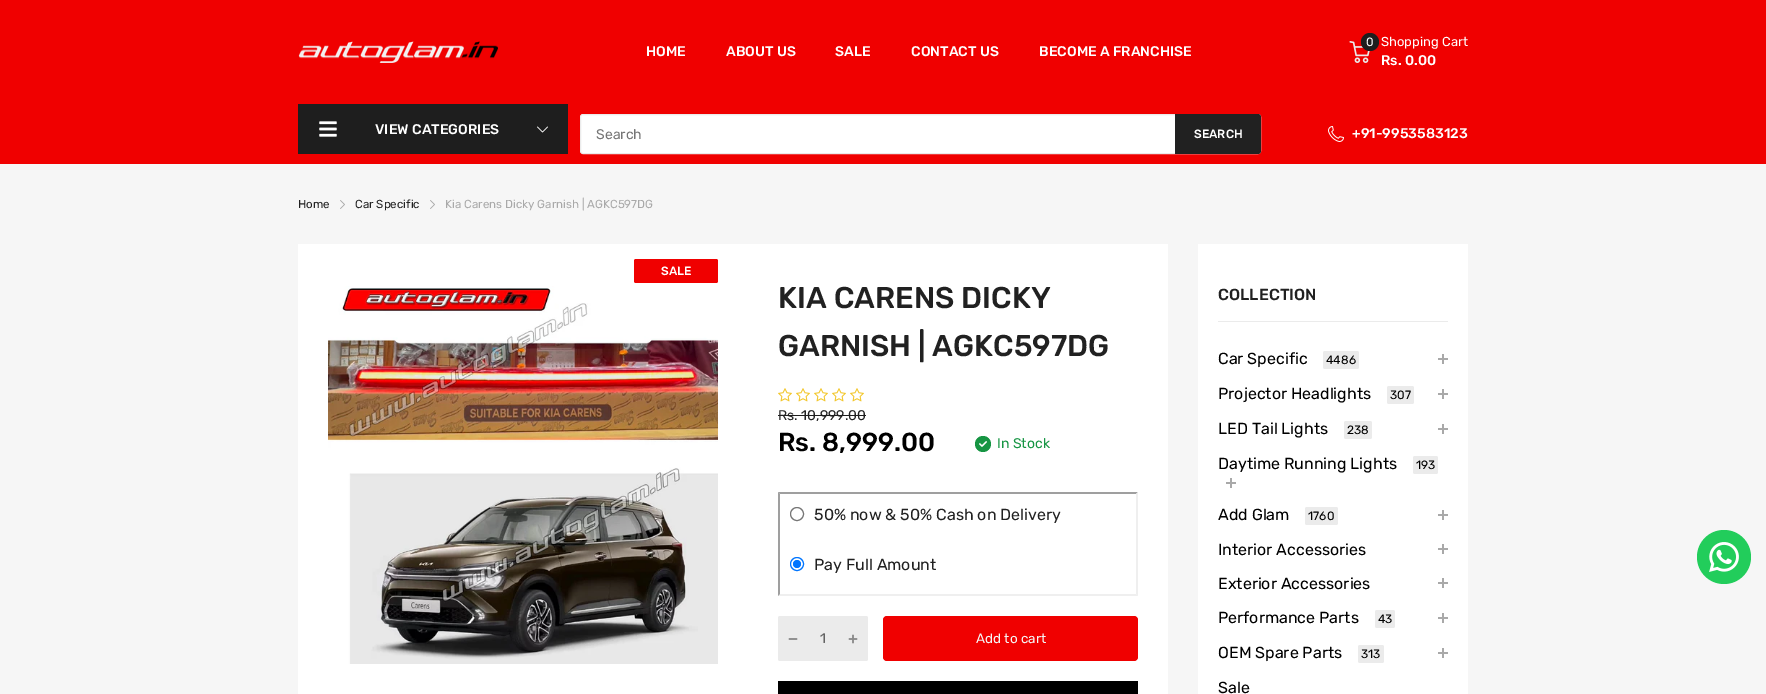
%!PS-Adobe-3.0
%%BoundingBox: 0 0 1766 694
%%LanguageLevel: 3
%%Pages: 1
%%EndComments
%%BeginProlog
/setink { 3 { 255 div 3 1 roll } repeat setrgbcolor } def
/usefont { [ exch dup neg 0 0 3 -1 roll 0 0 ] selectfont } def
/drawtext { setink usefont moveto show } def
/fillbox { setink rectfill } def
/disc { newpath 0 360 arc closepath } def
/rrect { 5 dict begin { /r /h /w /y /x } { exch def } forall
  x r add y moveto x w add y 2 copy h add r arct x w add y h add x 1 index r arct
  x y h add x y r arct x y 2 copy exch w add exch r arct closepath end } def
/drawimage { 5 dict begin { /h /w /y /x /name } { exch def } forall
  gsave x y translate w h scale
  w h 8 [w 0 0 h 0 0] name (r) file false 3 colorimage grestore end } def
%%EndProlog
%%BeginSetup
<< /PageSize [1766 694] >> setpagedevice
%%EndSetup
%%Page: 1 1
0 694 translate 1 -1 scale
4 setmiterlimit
0 0 1766 694 246 246 246 fillbox
0 0 1766 164 240 0 0 fillbox
(assets/img1.rgb) 298 41 200 22 drawimage
(HOME) 646 56 /Rubik-Medium 14 255 255 255 drawtext
(ABOUT US) 726 56 /Rubik-Medium 14 255 255 255 drawtext
(SALE) 835 56 /Rubik-Medium 14 255 255 255 drawtext
(CONTACT US) 911 56 /Rubik-Medium 14 255 255 255 drawtext
(BECOME A FRANCHISE) 1039 56 /Rubik-Medium 14 255 255 255 drawtext
(assets/img2.rgb) 1349 41 21 22 drawimage
30 30 30 setink
1370 42 9 disc fill
(0) 1366 46 /Rubik-Regular 12 255 255 255 drawtext
(Shopping Cart) 1381 46 /Rubik-Regular 13 255 255 255 drawtext
(Rs. 0.00) 1381 65 /Rubik-Medium 14 255 255 255 drawtext
298 104 270 50 30 30 30 fillbox
(assets/img3.rgb) 319 121 18 16 drawimage
(VIEW CATEGORIES) 375 134 /Rubik-Medium 14 255 255 255 drawtext
(assets/img4.rgb) 537 126 11 7 drawimage
580.5 114.5 680 39 2.5 rrect gsave fill grestore
235 235 235 setink
stroke
(Search) 596 139 /Rubik-Regular 14 117 117 117 drawtext
33 33 33 setink
1175 114 moveto 1258 114 lineto 1259.5 114 1261 115.5 1261 117 curveto 1261 151 lineto 1261 152.5 1259.5 154 1258 154 curveto 1175 154 lineto closepath fill
(SEARCH) 1194 138 /Rubik-Medium 12 255 255 255 drawtext
(assets/img5.rgb) 1328 126 16 16 drawimage
(+91-9953583123) 1352 138 /Rubik-Medium 14 255 255 255 drawtext
(Home) 298 208 /Rubik-Regular 11.6 33 33 33 drawtext
(assets/img6.rgb) 340 200 5 9 drawimage
(Car Specific) 355 208 /Rubik-Regular 11.6 33 33 33 drawtext
(assets/img6.rgb) 430 200 5 9 drawimage
(Kia Carens Dicky Garnish | AGKC597DG) 445 208 /Rubik-Regular 11.6 169 169 169 drawtext
298 244 870 450 255 255 255 fillbox
240 0 0 setink
634 259 84 24 2 rrect fill
(SALE) 661 275 /Rubik-Medium 12 255 255 255 drawtext
(assets/img7.rgb) 328 286 390 378 drawimage
(KIA CARENS DICKY) 778 308 /Rubik-Medium 30 33 33 33 drawtext
(GARNISH | AGKC597DG) 778 356 /Rubik-Medium 30 33 33 33 drawtext
(assets/img8.rgb) 778 388 14 14 drawimage
(assets/img8.rgb) 796 388 14 14 drawimage
(assets/img8.rgb) 814 388 14 14 drawimage
(assets/img8.rgb) 832 388 14 14 drawimage
(assets/img8.rgb) 850 388 14 14 drawimage
(Rs. 10,999.00) 778 420 /Rubik-Regular 14 33 33 33 drawtext
778 415 88 1 30 30 30 fillbox
(Rs. 8,999.00) 778 451 /Rubik-Medium 26 0 0 0 drawtext
22 149 67 setink
983 444 8 disc fill
(assets/img9.rgb) 979 441 8 6 drawimage
(In Stock) 997 448 /Rubik-Regular 14 22 149 67 drawtext
159 159 159 setink
778 492 moveto 1138 492 lineto 1136 494 lineto 780 494 lineto closepath fill
239 239 239 setink
1138 492 moveto 1138 596 lineto 1136 594 lineto 1136 494 lineto closepath fill
1138 596 moveto 778 596 lineto 780 594 lineto 1136 594 lineto closepath fill
159 159 159 setink
778 596 moveto 778 492 lineto 780 494 lineto 780 594 lineto closepath fill
118 118 118 setink
797 514 6.5 disc stroke
(50% now & 50% Cash on Delivery) 814 520 /Rubik-Regular 16 33 33 33 drawtext
0 117 255 setink
797 564 6.5 disc stroke
797 564 4 disc fill
(Pay Full Amount) 814 570 /Rubik-Regular 16 33 33 33 drawtext
235 235 235 setink
778 616 90 45 2 rrect fill
(assets/img10.rgb) 788 638 10 2 drawimage
(1) 820 643 /Rubik-Regular 14 98 98 98 drawtext
(assets/img11.rgb) 848 634 10 10 drawimage
240 0 0 setink
883 616 255 45 4 rrect fill
(Add to cart) 976 643 /Rubik-Regular 13.5 246 246 246 drawtext
778 681 360 13 0 0 0 fillbox
1198 244 270 450 255 255 255 fillbox
1218 321 230 1 235 235 235 fillbox
(COLLECTION) 1218 300 /Rubik-Medium 16 33 33 33 drawtext
(Car Specific) 1218 364 /Rubik-Regular 16 0 0 0 drawtext
235 235 235 setink
1323 351 36 18 2 rrect fill
(4486) 1326 364 /Rubik-Regular 12 0 0 0 drawtext
1442 354 2 10 169 169 169 fillbox
1438 358 10 2 169 169 169 fillbox
(Projector Headlights) 1218 399 /Rubik-Regular 16 0 0 0 drawtext
235 235 235 setink
1387 386 27 18 2 rrect fill
(307) 1390 399 /Rubik-Regular 12 0 0 0 drawtext
1442 389 2 10 169 169 169 fillbox
1438 393 10 2 169 169 169 fillbox
(LED Tail Lights) 1218 434 /Rubik-Regular 16 0 0 0 drawtext
235 235 235 setink
1344 421 28 18 2 rrect fill
(238) 1347 434 /Rubik-Regular 12 0 0 0 drawtext
1442 424 2 10 169 169 169 fillbox
1438 428 10 2 169 169 169 fillbox
(Daytime Running Lights) 1218 469 /Rubik-Regular 16 0 0 0 drawtext
235 235 235 setink
1413 456 25 18 2 rrect fill
(193) 1416 469 /Rubik-Regular 12 0 0 0 drawtext
1230 478 2 10 169 169 169 fillbox
1226 482 10 2 169 169 169 fillbox
(Add Glam) 1218 520 /Rubik-Regular 16 0 0 0 drawtext
235 235 235 setink
1305 507 33 18 2 rrect fill
(1760) 1308 520 /Rubik-Regular 12 0 0 0 drawtext
1442 510 2 10 169 169 169 fillbox
1438 514 10 2 169 169 169 fillbox
(Interior Accessories) 1218 555 /Rubik-Regular 16 0 0 0 drawtext
1442 544 2 10 169 169 169 fillbox
1438 548 10 2 169 169 169 fillbox
(Exterior Accessories) 1218 589 /Rubik-Regular 16 0 0 0 drawtext
1442 578 2 10 169 169 169 fillbox
1438 582 10 2 169 169 169 fillbox
(Performance Parts) 1218 623 /Rubik-Regular 16 0 0 0 drawtext
235 235 235 setink
1375 610 20 18 2 rrect fill
(43) 1378 623 /Rubik-Regular 12 0 0 0 drawtext
1442 613 2 10 169 169 169 fillbox
1438 617 10 2 169 169 169 fillbox
(OEM Spare Parts) 1218 658 /Rubik-Regular 16 0 0 0 drawtext
235 235 235 setink
1358 645 26 18 2 rrect fill
(313) 1361 658 /Rubik-Regular 12 0 0 0 drawtext
1442 648 2 10 169 169 169 fillbox
1438 652 10 2 169 169 169 fillbox
(Sale) 1218 693 /Rubik-Regular 16 0 0 0 drawtext
34 205 91 setink
1724 557 27 disc fill
(assets/img12.rgb) 1709 542 30 30 drawimage
showpage
%%EOF
